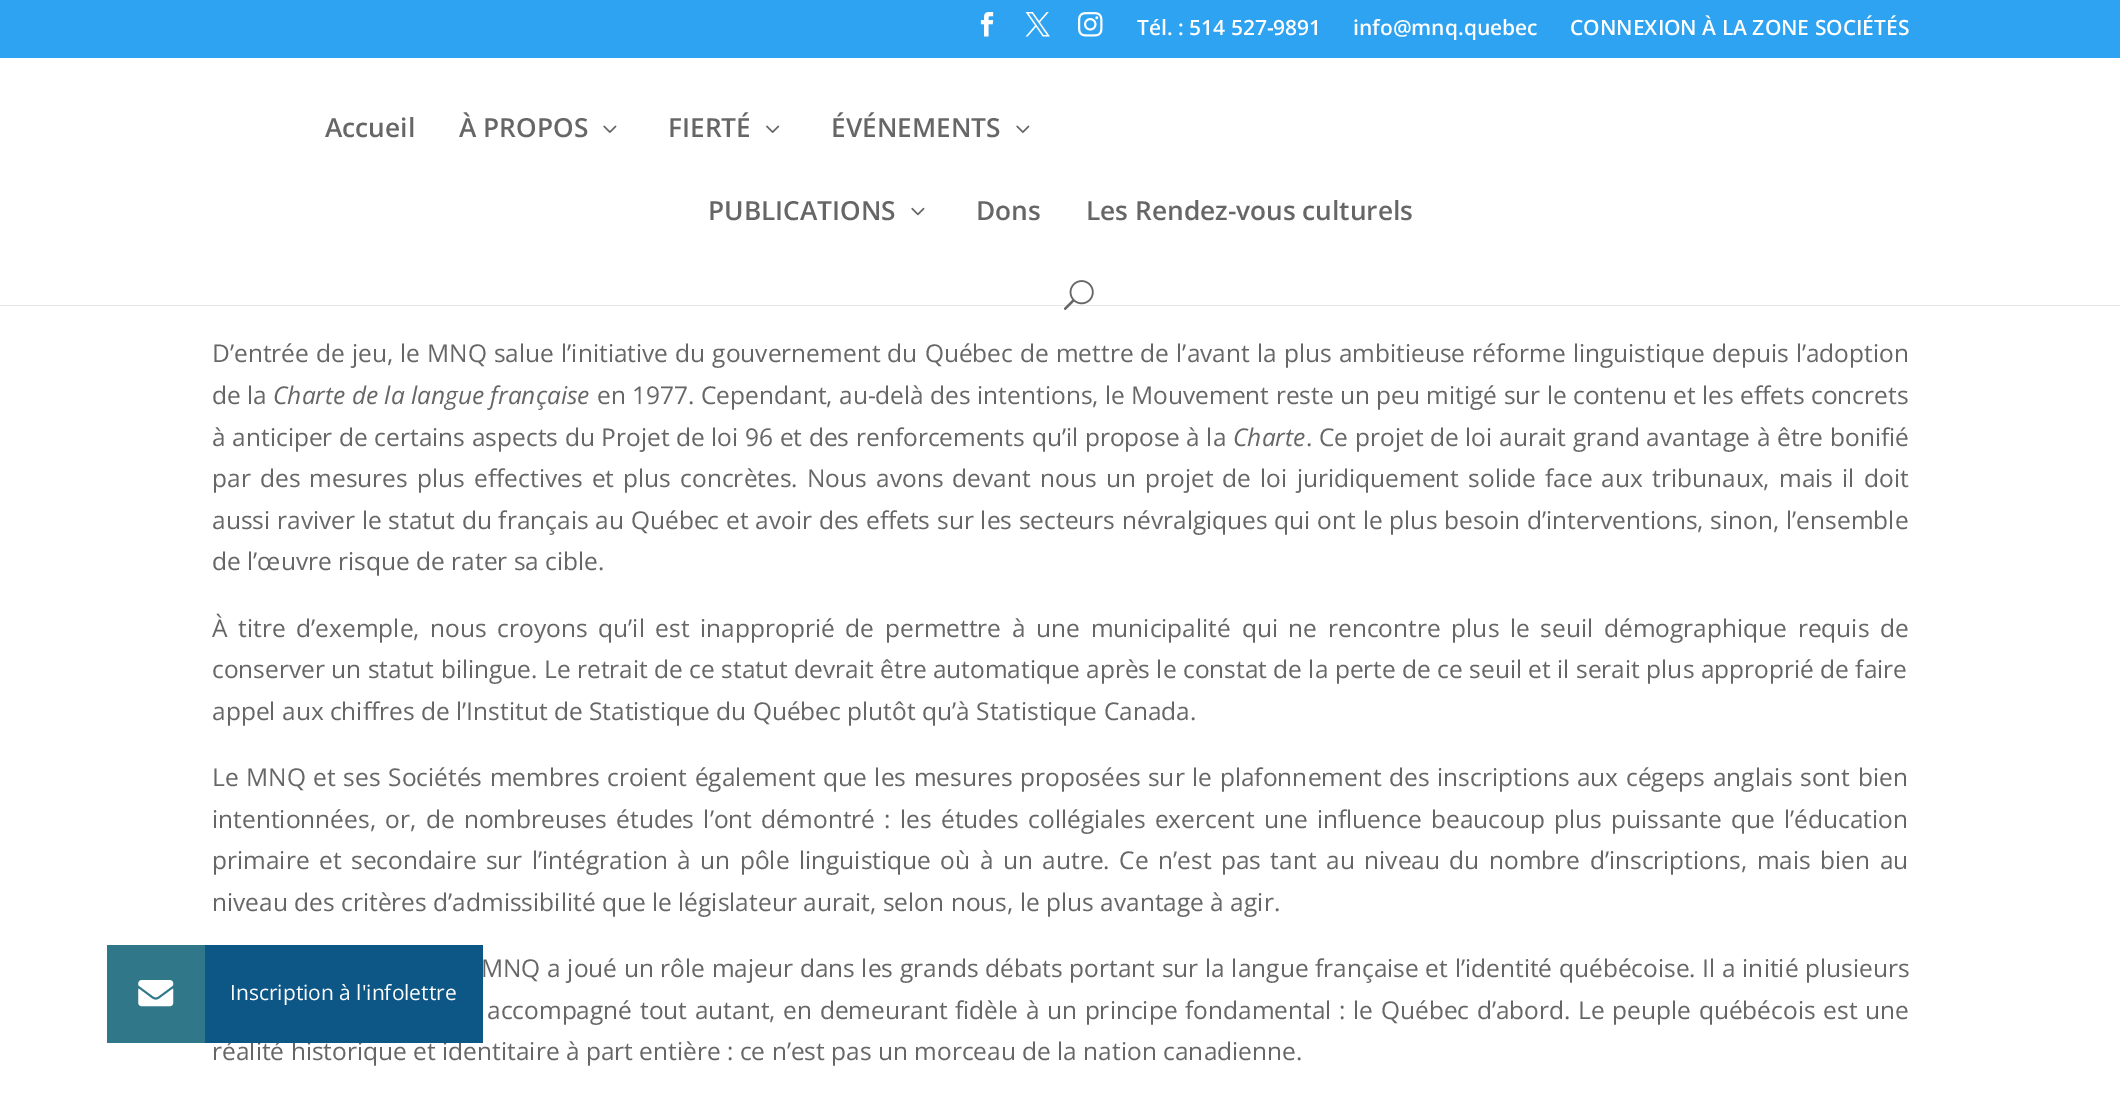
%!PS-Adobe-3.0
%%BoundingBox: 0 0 2120 1096
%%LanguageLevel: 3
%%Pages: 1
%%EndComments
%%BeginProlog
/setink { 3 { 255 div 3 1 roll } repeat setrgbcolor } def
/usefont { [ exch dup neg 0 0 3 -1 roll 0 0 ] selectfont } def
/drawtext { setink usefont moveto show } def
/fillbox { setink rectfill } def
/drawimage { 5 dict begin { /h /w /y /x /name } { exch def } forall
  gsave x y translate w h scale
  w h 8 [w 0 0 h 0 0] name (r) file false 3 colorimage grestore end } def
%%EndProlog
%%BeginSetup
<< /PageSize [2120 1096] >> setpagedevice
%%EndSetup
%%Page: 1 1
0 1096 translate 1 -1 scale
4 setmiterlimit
0 0 2120 1096 255 255 255 fillbox
0 0 2120 58 46 163 242 fillbox
(assets/img1.rgb) 980 12 14 25 drawimage
(assets/img2.rgb) 1025 12 25 25 drawimage
(assets/img3.rgb) 1078 12 25 25 drawimage
(Tél. : 514 527-9891) 1137 35 /OpenSans-SemiBold 21 255 255 255 drawtext
(info@mnq.quebec) 1353 35 /OpenSans-SemiBold 21 255 255 255 drawtext
(CONNEXION À LA ZONE SOCIÉTÉS) 1570 35 /OpenSans-SemiBold 21 255 255 255 drawtext
0 305 2120 1 230 230 230 fillbox
(Accueil) 325 137 /OpenSans-SemiBold 26.25 102 102 102 drawtext
(À PROPOS) 459 137 /OpenSans-SemiBold 26.25 102 102 102 drawtext
(assets/img4.rgb) 603 125 14 8 drawimage
(FIERTÉ) 668 137 /OpenSans-SemiBold 26.25 102 102 102 drawtext
(assets/img5.rgb) 766 125 14 8 drawimage
(ÉVÉNEMENTS) 831 137 /OpenSans-SemiBold 26.25 102 102 102 drawtext
(assets/img4.rgb) 1016 125 14 8 drawimage
(PUBLICATIONS) 708 220 /OpenSans-SemiBold 26.25 102 102 102 drawtext
(assets/img6.rgb) 911 207 14 9 drawimage
(Dons) 976 220 /OpenSans-SemiBold 26.25 102 102 102 drawtext
(Les Rendez-vous culturels) 1086 220 /OpenSans-SemiBold 26.25 102 102 102 drawtext
(assets/img7.rgb) 1063 280 31 30 drawimage
/OpenSans-Regular 24.5 usefont
212 362 moveto 0.7 0 32 (D’entrée de jeu, le MNQ salue l’initiative du gouvernement du Québec de mettre de l’avant la plus ambitieuse réforme linguistique depuis l’adoption) widthshow
(de la) 212 404 /OpenSans-Regular 24.5 102 102 102 drawtext
(Charte de la langue française) 273 404 /OpenSans-Italic 24.5 102 102 102 drawtext
(en 1977. Cependant, au-delà des intentions, le Mouvement reste un peu mitigé sur le contenu et les effets concrets) 597 404 /OpenSans-Regular 24.5 102 102 102 drawtext
212 446 moveto 0.25 0 32 (à anticiper de certains aspects du Projet de loi 96 et des renforcements qu’il propose à la) widthshow
(Charte) 1233 446 /OpenSans-Italic 24.5 102 102 102 drawtext
/OpenSans-Regular 24.5 usefont
1306 446 moveto 0.25 0 32 (. Ce projet de loi aurait grand avantage à être bonifié) widthshow
212 487 moveto 2.8 0 32 (par des mesures plus effectives et plus concrètes. Nous avons devant nous un projet de loi juridiquement solide face aux tribunaux, mais il doit) widthshow
212 529 moveto 0.4 0 32 (aussi raviver le statut du français au Québec et avoir des effets sur les secteurs névralgiques qui ont le plus besoin d’interventions, sinon, l’ensemble) widthshow
(de l’œuvre risque de rater sa cible.) 212 570 /OpenSans-Regular 24.5 102 102 102 drawtext
212 637 moveto 4.3 0 32 (À titre d’exemple, nous croyons qu’il est inapproprié de permettre à une municipalité qui ne rencontre plus le seuil démographique requis de) widthshow
(conserver un statut bilingue. Le retrait de ce statut devrait être automatique après le constat de la perte de ce seuil et il serait plus approprié de faire) 212 678 /OpenSans-Regular 24.5 102 102 102 drawtext
(appel aux chiffres de l’Institut de Statistique du Québec plutôt qu’à Statistique Canada.) 212 720 /OpenSans-Regular 24.5 102 102 102 drawtext
212 786 moveto 1.25 0 32 (Le MNQ et ses Sociétés membres croient également que les mesures proposées sur le plafonnement des inscriptions aux cégeps anglais sont bien) widthshow
212 828 moveto 2.9 0 32 (intentionnées, or, de nombreuses études l’ont démontré : les études collégiales exercent une influence beaucoup plus puissante que l’éducation) widthshow
212 869 moveto 3.1 0 32 (primaire et secondaire sur l’intégration à un pôle linguistique où à un autre. Ce n’est pas tant au niveau du nombre d’inscriptions, mais bien au) widthshow
(niveau des critères d’admissibilité que le législateur aurait, selon nous, le plus avantage à agir.) 212 911 /OpenSans-Regular 24.5 102 102 102 drawtext
481 977 moveto 0.25 0 32 (MNQ a joué un rôle majeur dans les grands débats portant sur la langue française et l’identité québécoise. Il a initié plusieurs) widthshow
487 1019 moveto 1.25 0 32 (accompagné tout autant, en demeurant fidèle à un principe fondamental : le Québec d’abord. Le peuple québécois est une) widthshow
(réalité historique et identitaire à part entière : ce n’est pas un morceau de la nation canadienne.) 212 1060 /OpenSans-Regular 24.5 102 102 102 drawtext
107 945 98 98 47 119 137 fillbox
(assets/img8.rgb) 138 980 36 27 drawimage
205 945 278 98 13 87 134 fillbox
(Inscription à l'infolettre) 230 1000 /OpenSans-Regular 21 255 255 255 drawtext
showpage
%%EOF
